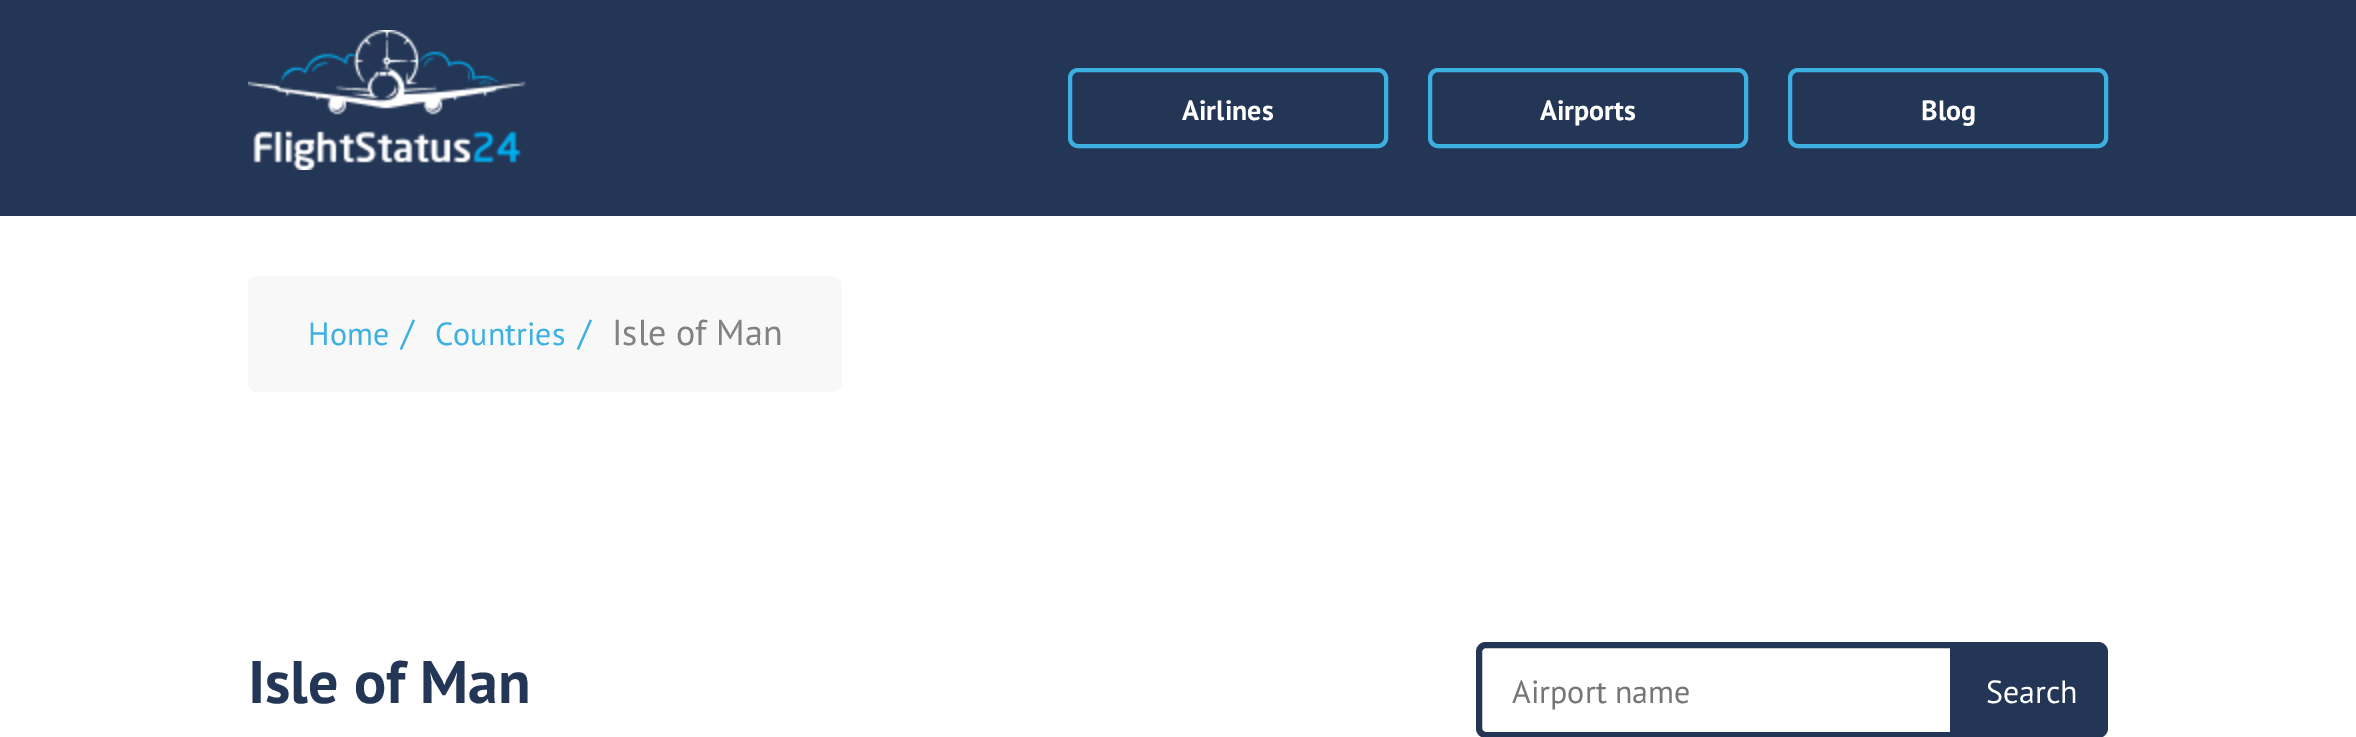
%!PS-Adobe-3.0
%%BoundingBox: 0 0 2356 737
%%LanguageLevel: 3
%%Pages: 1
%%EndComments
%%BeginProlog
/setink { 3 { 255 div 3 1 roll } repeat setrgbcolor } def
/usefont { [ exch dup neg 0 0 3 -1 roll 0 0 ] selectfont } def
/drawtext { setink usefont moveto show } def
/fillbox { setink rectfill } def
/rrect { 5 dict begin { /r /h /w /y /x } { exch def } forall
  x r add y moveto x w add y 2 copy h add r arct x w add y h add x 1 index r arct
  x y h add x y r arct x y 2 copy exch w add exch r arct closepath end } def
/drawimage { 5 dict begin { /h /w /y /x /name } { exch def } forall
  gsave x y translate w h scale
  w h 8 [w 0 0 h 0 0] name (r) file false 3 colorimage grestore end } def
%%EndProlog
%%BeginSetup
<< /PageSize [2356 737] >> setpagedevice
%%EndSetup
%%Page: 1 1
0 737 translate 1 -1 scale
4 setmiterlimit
0 0 2356 737 255 255 255 fillbox
0 0 2356 216 35 54 86 fillbox
(assets/img1.rgb) 248 30 278 140 drawimage
59 176 225 setink
4 setlinewidth
1070 70 316 76 8 rrect stroke
(Airlines) 1182 120 /PTSans-Bold 28 255 255 255 drawtext
59 176 225 setink
1430 70 316 76 8 rrect stroke
(Airports) 1540 120 /PTSans-Bold 28 255 255 255 drawtext
59 176 225 setink
1790 70 316 76 8 rrect stroke
(Blog) 1921 120 /PTSans-Bold 28 255 255 255 drawtext
248 248 248 setink
248 276 594 116 10 rrect fill
(Home) 308 345 /PTSans-Regular 32 59 176 225 drawtext
(/) 401 345 /PTSans-Regular 36 59 176 225 drawtext
(Countries) 435 345 /PTSans-Regular 32 59 176 225 drawtext
(/) 578 345 /PTSans-Regular 36 59 176 225 drawtext
(Isle of Man) 612 345 /PTSans-Regular 36 130 130 130 drawtext
(Isle of Man) 248 703 /PTSans-Bold 60 35 54 86 drawtext
6 setlinewidth
1486 645 moveto 1953 645 lineto 1953 735 lineto 1486 735 lineto 1482 735 1479 732 1479 728 curveto 1479 652 lineto 1479 648 1482 645 1486 645 curveto closepath stroke
(Airport name) 1512 703 /PTSans-Regular 32 117 117 117 drawtext
35 54 86 setink
1956 642 moveto 2098 642 lineto 2103.5 642 2108 646.5 2108 652 curveto 2108 728 lineto 2108 733.5 2103.5 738 2098 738 curveto 1956 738 lineto closepath fill
(Search) 1986 703 /PTSans-Regular 32 255 255 255 drawtext
showpage
%%EOF
